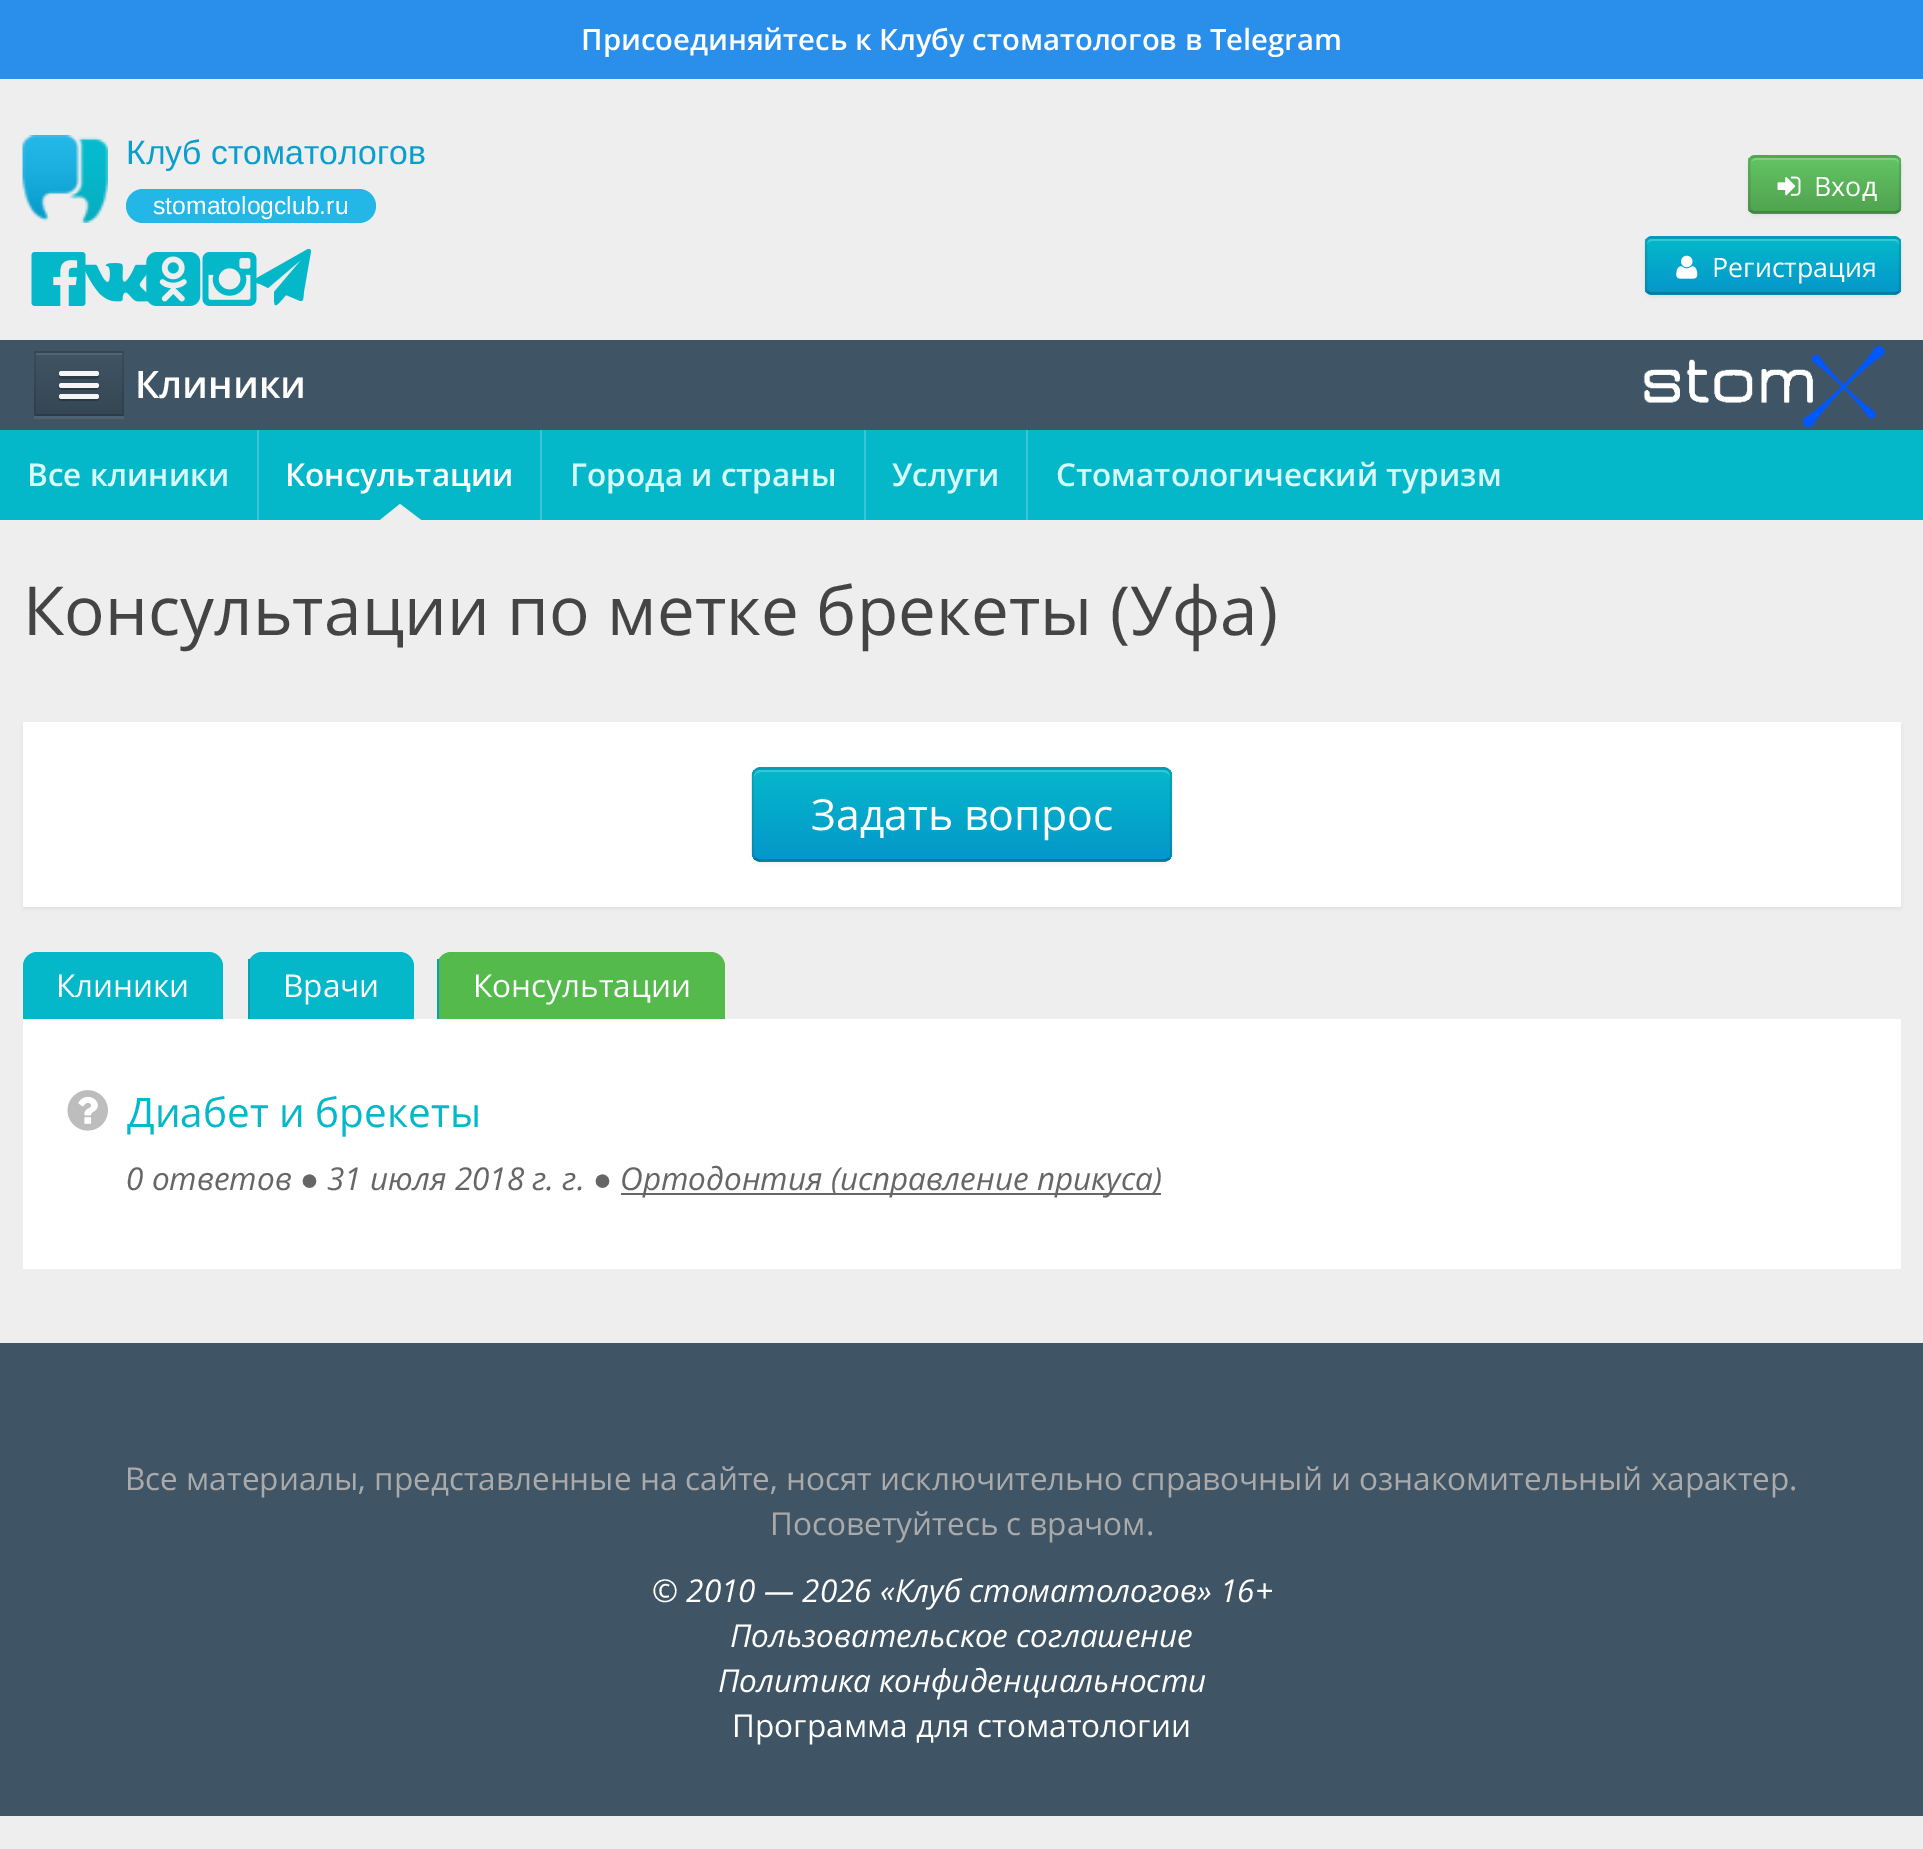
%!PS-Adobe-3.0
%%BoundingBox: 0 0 1923 1849
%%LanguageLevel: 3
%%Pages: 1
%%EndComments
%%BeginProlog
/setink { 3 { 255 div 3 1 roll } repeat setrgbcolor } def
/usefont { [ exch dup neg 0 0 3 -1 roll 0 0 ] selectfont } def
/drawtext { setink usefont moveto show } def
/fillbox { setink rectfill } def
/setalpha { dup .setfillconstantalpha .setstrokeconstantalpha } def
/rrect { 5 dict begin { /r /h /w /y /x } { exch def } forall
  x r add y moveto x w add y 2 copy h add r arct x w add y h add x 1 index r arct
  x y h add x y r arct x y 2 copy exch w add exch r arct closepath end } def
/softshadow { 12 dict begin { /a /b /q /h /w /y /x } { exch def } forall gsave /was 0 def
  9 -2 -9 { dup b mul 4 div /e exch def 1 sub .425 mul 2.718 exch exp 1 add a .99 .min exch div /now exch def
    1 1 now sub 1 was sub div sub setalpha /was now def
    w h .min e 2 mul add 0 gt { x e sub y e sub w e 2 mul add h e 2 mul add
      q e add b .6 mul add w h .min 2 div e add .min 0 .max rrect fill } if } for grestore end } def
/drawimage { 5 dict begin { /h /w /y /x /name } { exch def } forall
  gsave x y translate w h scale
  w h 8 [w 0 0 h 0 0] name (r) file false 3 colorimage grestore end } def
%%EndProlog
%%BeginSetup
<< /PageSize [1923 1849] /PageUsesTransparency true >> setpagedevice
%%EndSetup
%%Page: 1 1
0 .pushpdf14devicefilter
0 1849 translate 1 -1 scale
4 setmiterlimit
0 0 1923 1849 238 238 238 fillbox
0 0 1923 79 42 142 235 fillbox
(Присоединяйтесь к Клубу стоматологов в Telegram) 581 50 /OpenSans-SemiBold 29.25 255 255 255 drawtext
(assets/img1.rgb) 22 135 86 88 drawimage
(Клуб стоматологов) 126 164 /LiberationSans-Regular 33.75 9 158 206 drawtext
35 183 231 setink
126 189 250 34 17 rrect fill
(stomatologclub.ru) 153 214 /LiberationSans-Regular 24.75 255 255 255 drawtext
0 0 0 setink
1748 158 153 58 7 2 0.05 softshadow
91 183 91 setink
1748 155 153 59 7 rrect fill
gsave
1748 155 153 59 7 rrect clip newpath
gsave 1748 158 moveto 1901 158 lineto 1901 212 lineto 1748 212 lineto closepath clip newpath
<< /ShadingType 2 /ColorSpace /DeviceRGB /Coords [1825 158 1825 212] /Extend [true true] /Function << /FunctionType 2 /Domain [0 1] /C0 [0.384 0.769 0.384] /C1 [0.318 0.639 0.318] /N 1 >> >> shfill grestore
grestore
129 207 129 setink
1755 160 moveto 1894 160 lineto 1897 160 1899 162 1899 164 curveto 1899 163 lineto 1899 160 1897 158 1894 158 curveto 1756 158 lineto 1754 158 1752 160 1751 162 curveto 1752 161 1754 160 1755 160 curveto closepath fill
0.25 setalpha
0 0 0 setink
2.2 setlinewidth
1898.5 211 moveto 1897.5 212 1896 212.5 1894.5 212.5 curveto 1755 212.5 lineto 1753.5 212.5 1752 212 1751 211 curveto stroke
0.1 setalpha
1751 211 moveto 1748 208 1749.5 202.5 1749.5 199.5 curveto 1749.5 184.5 lineto 1749.5 151.5 1744 156.5 1778 156.5 curveto 1871 156.5 lineto 1905.5 156.5 1900 151.5 1900 184.5 curveto 1900 199.5 lineto 1900 202.5 1901.5 208 1898.5 211 curveto stroke
1 setalpha
(assets/img2.rgb) 1777 176 24 20 drawimage
(Вход) 1814 196 /OpenSans-Regular 26.75 255 255 255 drawtext
0 0 0 setink
1645 239 256 58 7 2 0.05 softshadow
4 171 202 setink
1645 236 256 59 7 rrect fill
gsave
1645 236 256 59 7 rrect clip newpath
gsave 1645 239 moveto 1901 239 lineto 1901 293 lineto 1645 293 lineto closepath clip newpath
<< /ShadingType 2 /ColorSpace /DeviceRGB /Coords [1773 239 1773 293] /Extend [true true] /Function << /FunctionType 2 /Domain [0 1] /C0 [0.016 0.722 0.792] /C1 [0.016 0.592 0.792] /N 1 >> >> shfill grestore
grestore
54 198 213 setink
1652 241 moveto 1894 241 lineto 1897 241 1899 243 1899 245 curveto 1899 244 lineto 1899 241 1897 239 1894 239 curveto 1652 239 lineto 1649 239 1647 241 1647 244 curveto 1647 245 lineto 1647 243 1649 241 1652 241 curveto closepath fill
0.25 setalpha
0 0 0 setink
1898.5 292 moveto 1897.5 293 1896 293.5 1894.5 293.5 curveto 1651.5 293.5 lineto 1650 293.5 1648.5 293 1647.5 292 curveto stroke
0.1 setalpha
1647.5 292 moveto 1646.5 291 1646 289.5 1646 288 curveto 1646 243 lineto 1646 241.5 1646.5 240 1647.5 239 curveto 1648.5 238 1650 237.5 1651.5 237.5 curveto 1894.5 237.5 lineto 1896 237.5 1897.5 238 1898.5 239 curveto 1899.5 240 1900 241.5 1900 243 curveto 1900 288 lineto 1900 289.5 1899.5 291 1898.5 292 curveto stroke
1 setalpha
(assets/img3.rgb) 1676 255 22 24 drawimage
(Регистрация) 1712 277 /OpenSans-Regular 26.75 255 255 255 drawtext
(assets/img4.rgb) 31 252 55 54 drawimage
(assets/img5.rgb) 85 263 64 39 drawimage
(assets/img6.rgb) 146 252 55 54 drawimage
(assets/img7.rgb) 202 252 55 54 drawimage
4 184 202 setink
310 249 moveto 311 251 lineto 304 291 lineto 303 299 304 303 298 300 curveto 286 295 lineto 274 309 274 309 274 292 curveto 302 259 lineto 268 288 lineto 260 284 lineto 259 284 252 282 255 279 curveto 308 249 lineto closepath fill
0 340 1923 90 63 84 100 fillbox
77 97 112 setink
34 416 moveto 34 419 lineto 124 419 lineto 124 353 lineto 124 416 lineto closepath fill
34 351 90 65 59 79 94 fillbox
gsave 34 353 moveto 124 353 lineto 124 414 lineto 34 414 lineto closepath clip newpath
<< /ShadingType 2 /ColorSpace /DeviceRGB /Coords [79 353 79 414] /Extend [true true] /Function << /FunctionType 2 /Domain [0 1] /C0 [0.247 0.329 0.392] /C1 [0.208 0.278 0.329] /N 1 >> >> shfill grestore
36 353 86 2 82 101 116 fillbox
53 71 85 setink
34 351 moveto 124 351 lineto 122 353 lineto 36 353 lineto closepath fill
0.1 setalpha
0 0 0 setink
124 351 moveto 124 416 lineto 122 414 lineto 122 353 lineto closepath fill
0.25 setalpha
124 416 moveto 34 416 lineto 36 414 lineto 122 414 lineto closepath fill
0.1 setalpha
34 416 moveto 34 351 lineto 36 353 lineto 36 414 lineto closepath fill
1 setalpha
44 59 70 setink
59 375 moveto 57 380 67 379 67 379 curveto 91 379 lineto 91 379 102 380 98 375 curveto 97 376 lineto 94 376 61 376 59 375 curveto closepath fill
245 245 245 setink
59 371 40 5 2.5 rrect fill
43 57 68 setink
59 386 moveto 57 391 66 390 67 390 curveto 91 390 lineto 91 390 102 391 99 386 curveto 97 387 lineto 93 387 61 388 59 386 curveto closepath fill
245 245 245 setink
59 383 40 5 2.5 rrect fill
41 56 66 setink
59 398 moveto 57 402 66 401 67 401 curveto 91 401 lineto 91 401 101 402 99 397 curveto 97 398 lineto 93 399 60 399 59 398 curveto closepath fill
245 245 245 setink
59 394 40 5 2.5 rrect fill
(Клиники) 135 398 /OpenSans-SemiBold 38 255 255 255 drawtext
(assets/img8.rgb) 1643 345 242 83 drawimage
0 430 1923 90 4 184 202 fillbox
257 430 2 90 55 198 214 fillbox
(Все клиники) 27 486 /OpenSans-SemiBold 31.5 216 251 253 drawtext
540 430 2 90 55 198 214 fillbox
(Консультации) 285 486 /OpenSans-SemiBold 31.5 255 255 255 drawtext
238 238 238 setink
421 520 moveto 380 520 lineto 400 504 lineto closepath fill
864 430 2 90 55 198 214 fillbox
(Города и страны) 570 486 /OpenSans-SemiBold 31.5 216 251 253 drawtext
1026 430 2 90 55 198 214 fillbox
(Услуги) 892 486 /OpenSans-SemiBold 31.5 216 251 253 drawtext
(Стоматологический туризм) 1056 486 /OpenSans-SemiBold 31.5 216 251 253 drawtext
(Консультации по метке брекеты \(Уфа\)) 23 635 /OpenSans-Regular 67.5 68 68 68 drawtext
0 0 0 setink
23 725 1878 184 0 2 0.05 softshadow
23 722 1878 185 255 255 255 fillbox
0 0 0 setink
752 770 420 94 9 2 0.05 softshadow
4 171 202 setink
752 767 420 95 9 rrect fill
gsave
752 767 420 95 9 rrect clip newpath
gsave 752 770 moveto 1172 770 lineto 1172 860 lineto 752 860 lineto closepath clip newpath
<< /ShadingType 2 /ColorSpace /DeviceRGB /Coords [962 770 962 860] /Extend [true true] /Function << /FunctionType 2 /Domain [0 1] /C0 [0.016 0.722 0.792] /C1 [0.016 0.592 0.792] /N 1 >> >> shfill grestore
grestore
54 198 213 setink
760 772 moveto 1163 772 lineto 1167 772 1170 775 1170 778 curveto 1170 774 1168 770 1163 770 curveto 761 770 lineto 756 770 754 774 754 778 curveto 754 775 757 772 760 772 curveto closepath fill
0.25 setalpha
0 0 0 setink
1169 858.5 moveto 1167.5 860 1165.5 860.5 1163 860.5 curveto 760.5 860.5 lineto 758.5 860.5 756.5 860 755 858.5 curveto stroke
0.1 setalpha
755 858.5 moveto 753.5 857 752.5 855 752.5 853 curveto 752.5 776 lineto 752.5 774 753.5 772 755 770.5 curveto 756.5 769 758.5 768.5 760.5 768.5 curveto 1163 768.5 lineto 1165.5 768.5 1167.5 769 1169 770.5 curveto 1170.5 772 1171 774 1171 776 curveto 1171 853 lineto 1171 855 1170.5 857 1169 858.5 curveto stroke
1 setalpha
(Задать вопрос) 811 830 /OpenSans-Regular 42.75 255 255 255 drawtext
4 184 202 setink
37 952 moveto 209 952 lineto 216.5 952 223 958.5 223 966 curveto 223 1019 lineto 23 1019 lineto 23 966 lineto 23 958.5 29.5 952 37 952 curveto closepath fill
(Клиники) 56 997 /OpenSans-Regular 31.5 255 255 255 drawtext
4 184 202 setink
262 952 moveto 400 952 lineto 407.5 952 414 958.5 414 966 curveto 414 1019 lineto 248 1019 lineto 248 966 lineto 248 958.5 254.5 952 262 952 curveto closepath fill
248 959 2 60 4 161 177 fillbox
(Врачи) 283 997 /OpenSans-Regular 31.5 255 255 255 drawtext
84 186 76 setink
451 952 moveto 711 952 lineto 718.5 952 725 958.5 725 966 curveto 725 1019 lineto 437 1019 lineto 437 966 lineto 437 958.5 443.5 952 451 952 curveto closepath fill
437 959 2 60 4 161 177 fillbox
(Консультации) 473 997 /OpenSans-Regular 31.5 255 255 255 drawtext
23 1019 1878 250 255 255 255 fillbox
(assets/img9.rgb) 67 1090 41 41 drawimage
(Диабет и брекеты) 127 1127 /OpenSans-Regular 40.5 4 184 202 drawtext
(0 ответов) 126 1190 /OpenSans-Italic 31.5 102 102 102 drawtext
(●) 300 1190 /LiberationSans-Italic 31.5 102 102 102 drawtext
(31 июля 2018 г. г.) 327 1190 /OpenSans-Italic 31.5 102 102 102 drawtext
(●) 593 1190 /LiberationSans-Italic 31.5 102 102 102 drawtext
621 1193 540 2 102 102 102 fillbox
(Ортодонтия \(исправление прикуса\)) 620 1190 /OpenSans-Italic 31.5 102 102 102 drawtext
0 1343 1923 473 63 84 100 fillbox
(Все материалы, представленные на сайте, носят исключительно справочный и ознакомительный характер.) 125 1490 /OpenSans-Regular 31.5 170 170 170 drawtext
(Посоветуйтесь с врачом.) 770 1535 /OpenSans-Regular 31.5 170 170 170 drawtext
(© 2010 — 2026 «Клуб стоматологов» 16+) 652 1602 /OpenSans-Italic 31.5 255 255 255 drawtext
(Пользовательское соглашение) 730 1647 /OpenSans-Italic 31.5 255 255 255 drawtext
(Политика конфиденциальности) 718 1692 /OpenSans-Italic 31.5 255 255 255 drawtext
(Программа для стоматологии) 732 1737 /OpenSans-Regular 31.5 255 255 255 drawtext
.poppdf14devicefilter showpage
%%EOF
